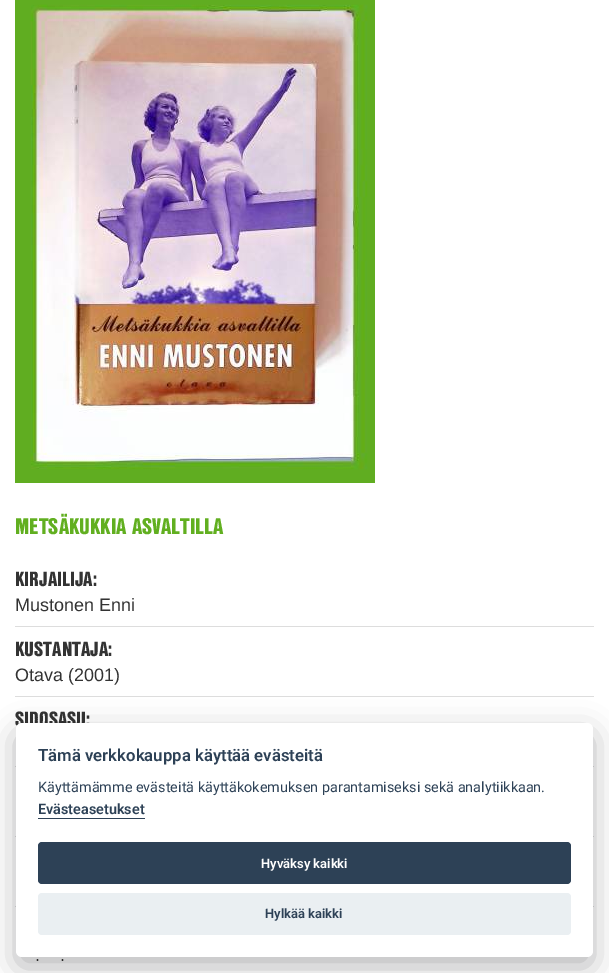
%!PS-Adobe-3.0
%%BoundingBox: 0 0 609 973
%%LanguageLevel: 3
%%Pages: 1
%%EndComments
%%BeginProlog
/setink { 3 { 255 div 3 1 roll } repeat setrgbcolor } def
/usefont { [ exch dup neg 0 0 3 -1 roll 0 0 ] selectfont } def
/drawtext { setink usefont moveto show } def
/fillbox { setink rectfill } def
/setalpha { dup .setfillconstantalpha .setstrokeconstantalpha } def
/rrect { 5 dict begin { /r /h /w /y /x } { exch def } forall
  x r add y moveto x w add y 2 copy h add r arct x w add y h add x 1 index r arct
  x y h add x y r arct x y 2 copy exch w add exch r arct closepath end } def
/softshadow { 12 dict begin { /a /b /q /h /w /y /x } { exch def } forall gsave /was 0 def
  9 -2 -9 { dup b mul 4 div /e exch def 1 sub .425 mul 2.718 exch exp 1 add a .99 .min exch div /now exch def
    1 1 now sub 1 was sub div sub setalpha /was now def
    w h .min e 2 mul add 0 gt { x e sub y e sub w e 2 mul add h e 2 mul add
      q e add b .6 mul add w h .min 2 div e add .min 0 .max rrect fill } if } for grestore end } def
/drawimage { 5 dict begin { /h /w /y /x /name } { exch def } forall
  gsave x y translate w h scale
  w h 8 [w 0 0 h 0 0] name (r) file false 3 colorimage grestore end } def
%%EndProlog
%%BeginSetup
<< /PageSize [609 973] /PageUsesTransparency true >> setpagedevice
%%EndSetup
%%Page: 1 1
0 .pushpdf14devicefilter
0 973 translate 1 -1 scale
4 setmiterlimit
0 0 609 973 255 255 255 fillbox
(assets/img1.rgb) 15 0 360 483 drawimage
(METSÄKUKKIA ASVALTILLA) 15 534 /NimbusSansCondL-Black 22 97 175 32 drawtext
15 626 579 1 221 221 221 fillbox
(KIRJAILIJA:) 15 586 /NimbusSansCondL-Black 20 51 51 51 drawtext
(Mustonen Enni) 15 611 /LiberationSans-Regular 18 51 51 51 drawtext
15 696 579 1 221 221 221 fillbox
(KUSTANTAJA:) 15 656 /NimbusSansCondL-Black 20 51 51 51 drawtext
(Otava \(2001\)) 15 681 /LiberationSans-Regular 18 51 51 51 drawtext
15 766 579 1 221 221 221 fillbox
(SIDOSASU:) 15 726 /NimbusSansCondL-Black 20 51 51 51 drawtext
15 836 579 1 221 221 221 fillbox
15 906 579 1 221 221 221 fillbox
(.) 35 961 /LiberationSans-Regular 18 51 51 51 drawtext
(.) 60 961 /LiberationSans-Regular 18 51 51 51 drawtext
2 2 3 setink
16 733 577 234 6 15 0.28 softshadow
255 255 255 setink
16 723 577 234 6 rrect fill
(Tämä verkkokauppa käyttää evästeitä) 38 761 /Roboto-SemiBold 16.75 45 65 86 drawtext
(Käyttämämme evästeitä käyttäkokemuksen parantamiseksi sekä analytiikkaan.) 38 792 /Roboto-Regular 14.4 45 65 86 drawtext
(Evästeasetukset) 38 814 /Roboto-SemiBold 14.4 45 65 86 drawtext
38 818 107 1 45 65 86 fillbox
38 842 533 42 4 rrect fill
(Hyväksy kaikki) 261 868 /Roboto-SemiBold 13 255 255 255 drawtext
234 239 242 setink
38 893 533 42 4 rrect fill
(Hylkää kaikki) 265 918 /Roboto-SemiBold 13 45 65 86 drawtext
.poppdf14devicefilter showpage
%%EOF
